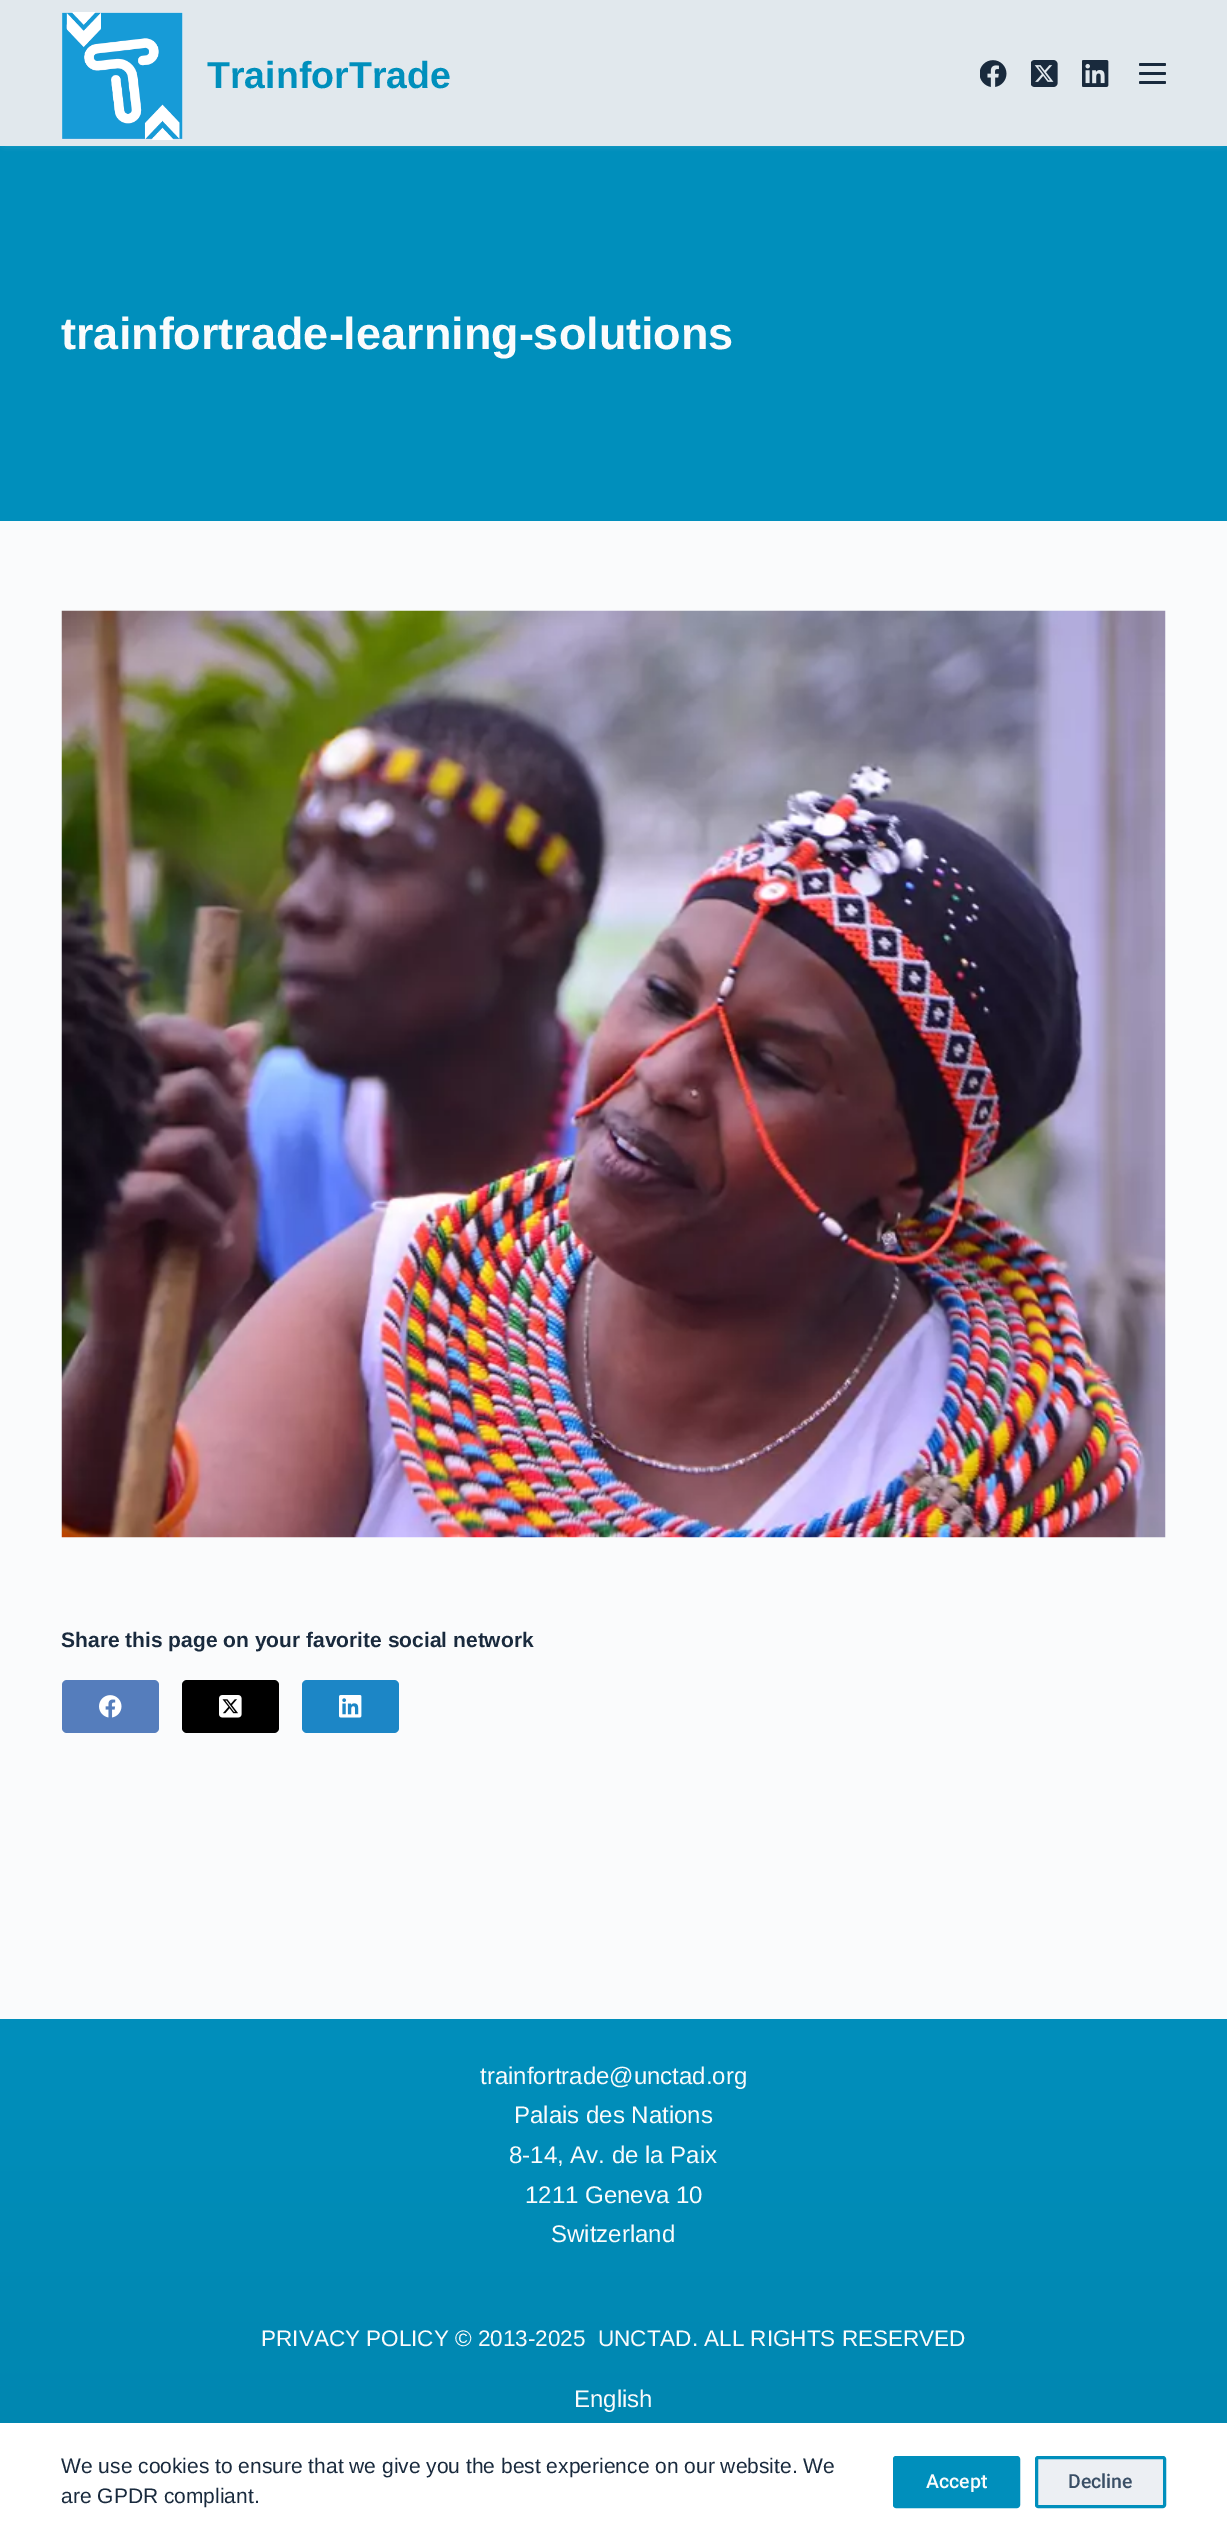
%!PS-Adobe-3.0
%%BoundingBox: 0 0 1227 2541
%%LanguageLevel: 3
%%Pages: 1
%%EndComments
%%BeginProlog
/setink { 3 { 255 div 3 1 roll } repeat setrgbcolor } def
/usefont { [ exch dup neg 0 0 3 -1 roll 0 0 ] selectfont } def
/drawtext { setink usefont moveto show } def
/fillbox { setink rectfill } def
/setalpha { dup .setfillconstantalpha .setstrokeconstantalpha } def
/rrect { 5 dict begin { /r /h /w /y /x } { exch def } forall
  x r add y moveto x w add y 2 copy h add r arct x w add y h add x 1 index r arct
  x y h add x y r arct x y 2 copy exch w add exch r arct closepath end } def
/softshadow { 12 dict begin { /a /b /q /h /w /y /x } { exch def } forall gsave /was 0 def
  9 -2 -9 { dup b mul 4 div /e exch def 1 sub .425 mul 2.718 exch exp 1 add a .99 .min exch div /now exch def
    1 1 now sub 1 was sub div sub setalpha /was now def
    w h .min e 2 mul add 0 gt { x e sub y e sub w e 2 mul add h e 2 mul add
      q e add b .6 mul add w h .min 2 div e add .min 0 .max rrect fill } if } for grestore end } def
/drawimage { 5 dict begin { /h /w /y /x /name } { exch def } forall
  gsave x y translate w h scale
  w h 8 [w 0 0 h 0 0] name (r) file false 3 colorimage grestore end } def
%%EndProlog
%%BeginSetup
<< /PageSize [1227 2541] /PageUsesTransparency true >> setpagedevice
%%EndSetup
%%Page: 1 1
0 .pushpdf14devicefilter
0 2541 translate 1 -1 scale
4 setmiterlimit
0 0 1227 2541 250 251 252 fillbox
0 146 1227 375 0 143 188 fillbox
225 232 237 setink
5 5 1218 136 0 4.5 0.5 softshadow
0 0 1227 146 225 232 237 fillbox
(assets/img1.rgb) 62 12 121 128 drawimage
(TrainforTrade) 207 88 /LiberationSans-Bold 37.5 0 143 188 drawtext
(assets/img2.rgb) 980 60 27 27 drawimage
(assets/img3.rgb) 1031 60 27 27 drawimage
(assets/img4.rgb) 1082 60 27 27 drawimage
25 42 61 setink
1139 63 27 3 1.5 rrect fill
1139 72 27 3 1.5 rrect fill
1139 81 27 3 1.5 rrect fill
(trainfortrade-learning-solutions) 61 349 /LiberationSans-Bold 45 250 251 252 drawtext
(assets/img5.rgb) 61 610 1105 928 drawimage
(Share this page on your favorite social network) 61 1647 /LiberationSans-Bold 21 25 42 61 drawtext
85 125 188 setink
62 1680 97 53 5 rrect fill
(assets/img6.rgb) 99 1695 23 23 drawimage
0 0 0 setink
182 1680 97 53 5 rrect fill
(assets/img7.rgb) 219 1695 23 23 drawimage
28 134 198 setink
302 1680 97 53 5 rrect fill
(assets/img8.rgb) 339 1695 23 23 drawimage
gsave 0 2019 moveto 1227 2019 lineto 1227 2423 lineto 0 2423 lineto closepath clip newpath
<< /ShadingType 2 /ColorSpace /DeviceRGB /Coords [614 2019 614 2541] /Extend [true true] /Function << /FunctionType 2 /Domain [0 1] /C0 [0 0.561 0.737] /C1 [0 0.522 0.682] /N 1 >> >> shfill grestore
(trainfortrade@unctad.org) 480 2084 /LiberationSans-Regular 24 250 251 252 drawtext
(Palais des Nations) 514 2123 /LiberationSans-Regular 24 250 251 252 drawtext
(8-14, Av. de la Paix) 509 2163 /LiberationSans-Regular 24 250 251 252 drawtext
(1211 Geneva 10) 525 2203 /LiberationSans-Regular 24 250 251 252 drawtext
(Switzerland) 551 2242 /LiberationSans-Regular 24 250 251 252 drawtext
(PRIVACY POLICY) 261 2346 /LiberationSans-Regular 22.5 250 251 252 drawtext
(© 2013-2025  UNCTAD. ALL RIGHTS RESERVED) 455 2346 /LiberationSans-Regular 22.5 250 251 252 drawtext
(English) 574 2407 /LiberationSans-Regular 24 250 251 252 drawtext
0 2423 1227 118 255 255 255 fillbox
(We use cookies to ensure that we give you the best experience on our website. We) 61 2473 /LiberationSans-Regular 21 25 42 61 drawtext
(are GPDR compliant.) 61 2503 /LiberationSans-Regular 21 25 42 61 drawtext
0 143 188 setink
894.5 2457.5 124 49 1.5 rrect gsave fill grestore
3 setlinewidth
stroke
(Accept) 926 2488 /Roboto-Medium 19.5 250 251 252 drawtext
236 239 243 setink
1036.5 2457.5 128 49 1.5 rrect gsave fill grestore
0 143 188 setink
stroke
(Decline) 1068 2488 /Roboto-Medium 19.5 58 79 102 drawtext
.poppdf14devicefilter showpage
%%EOF
